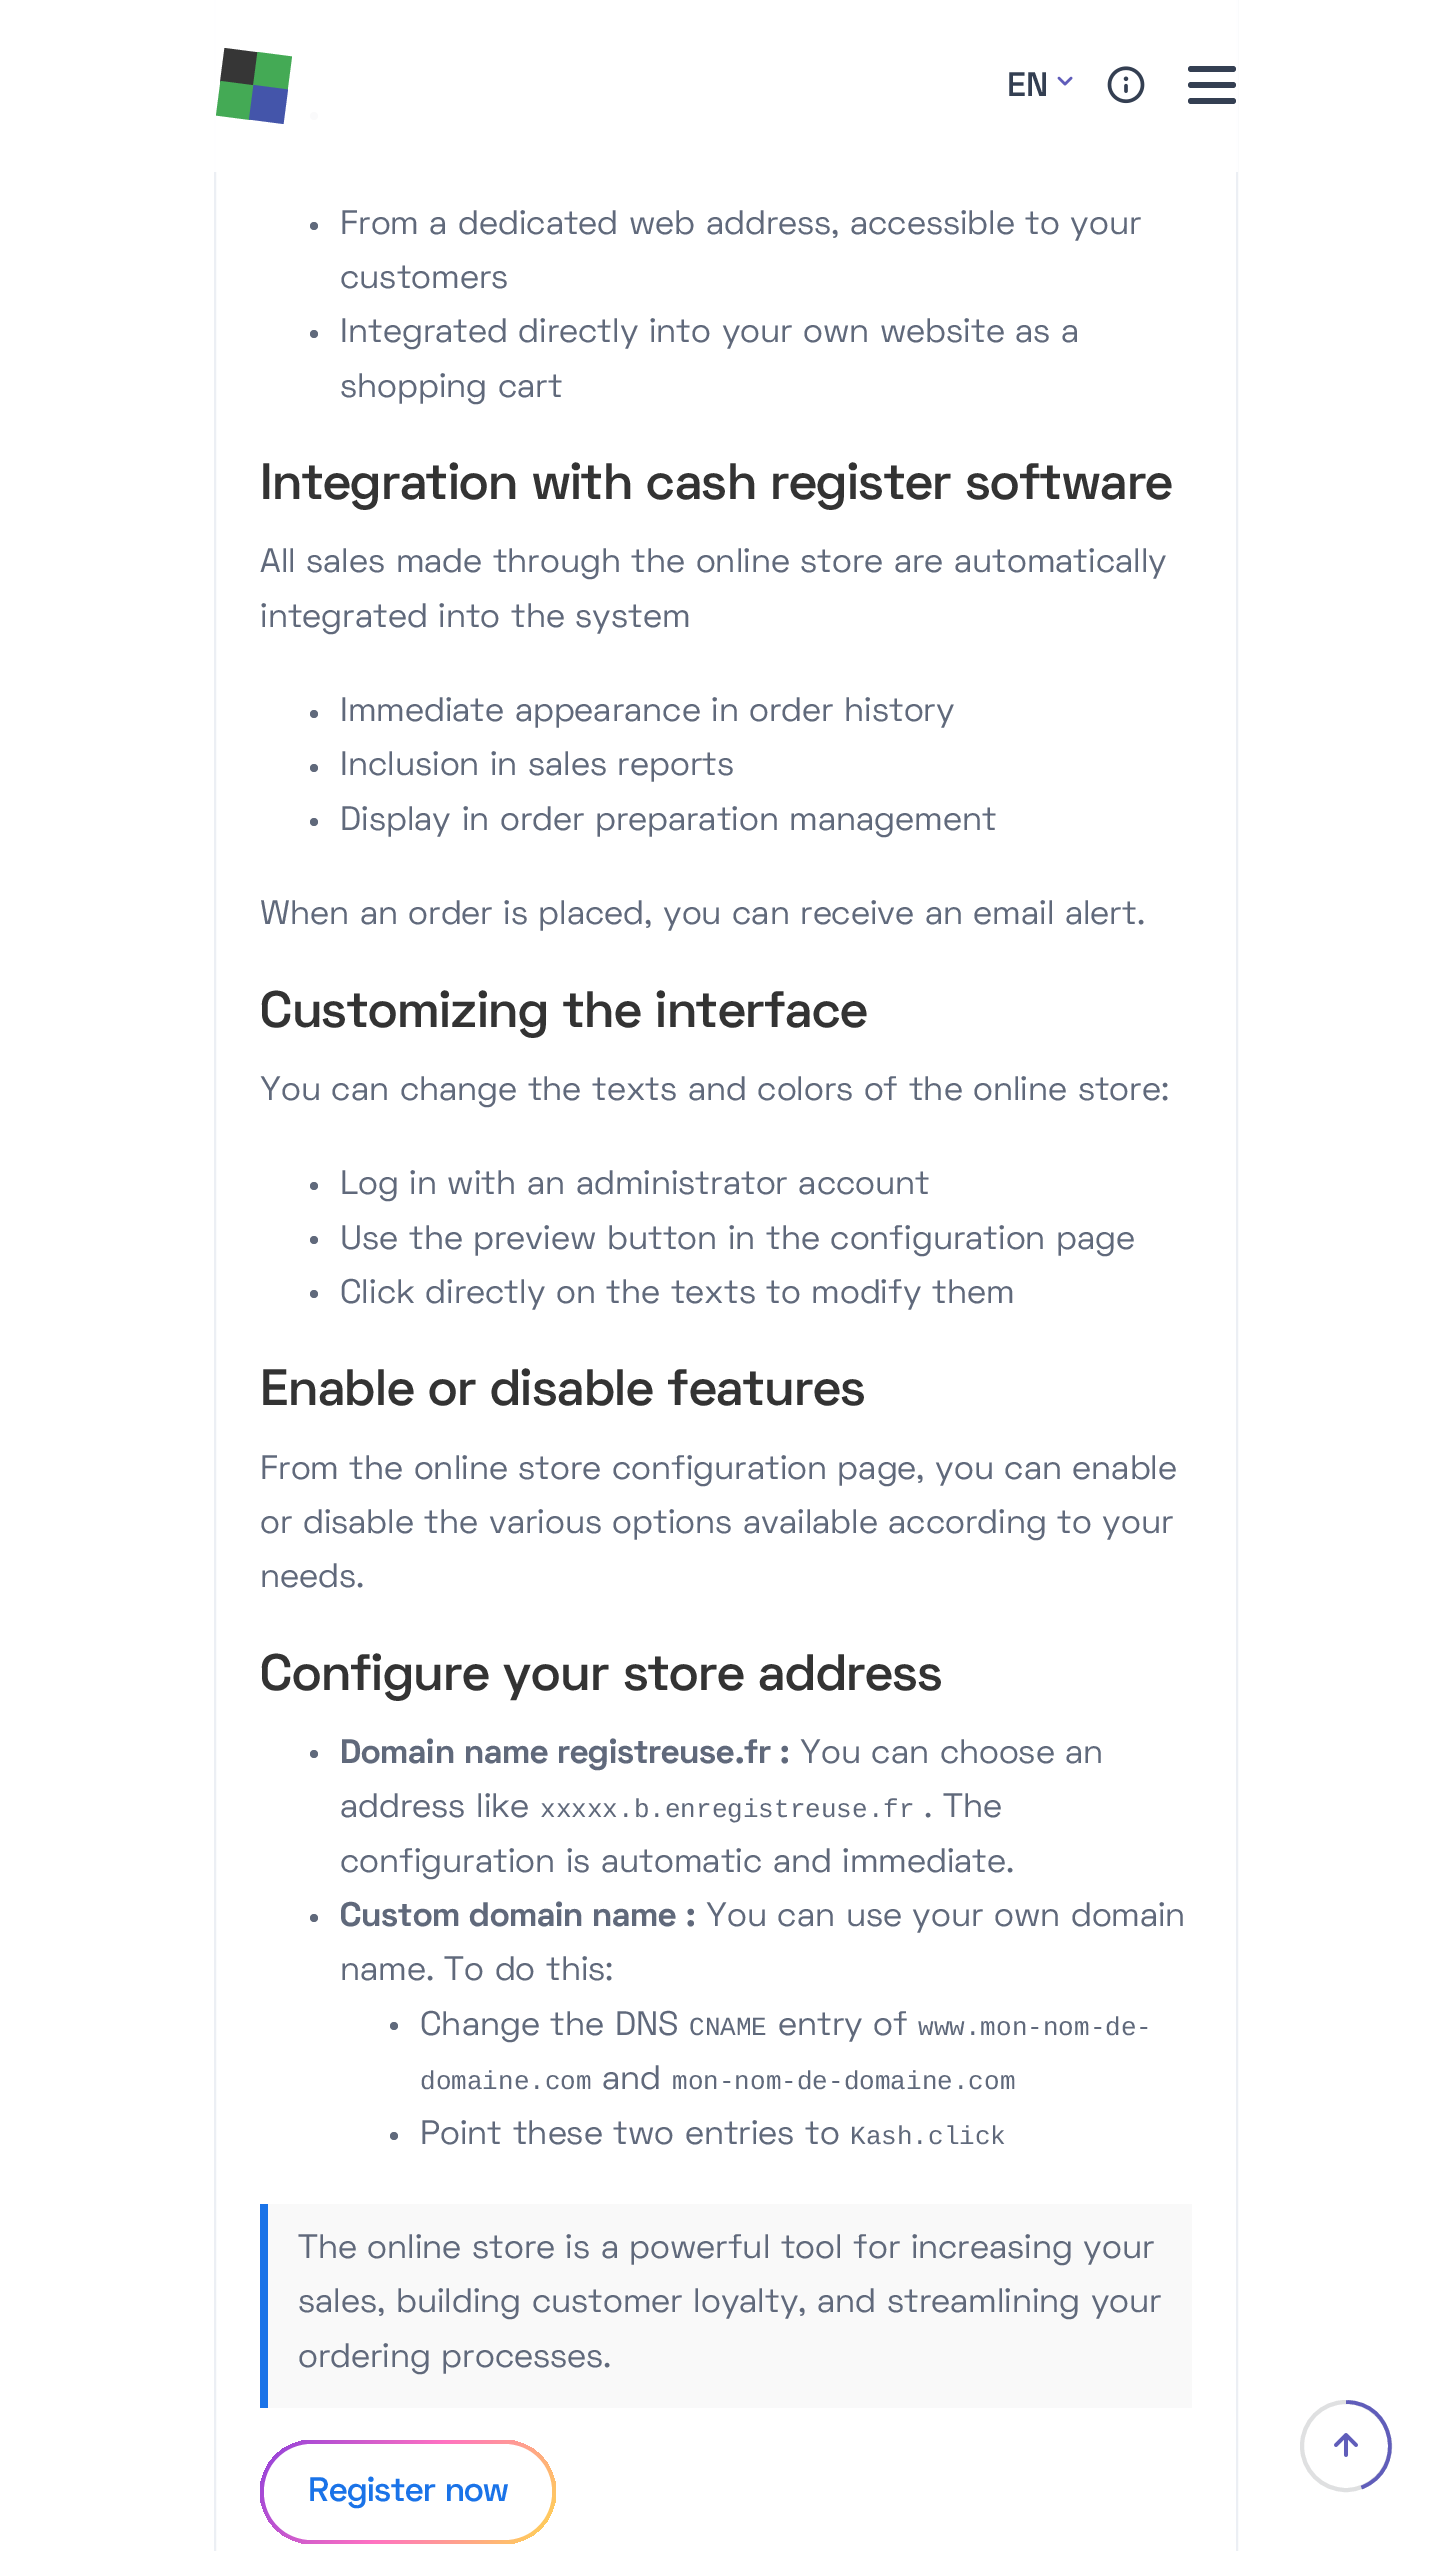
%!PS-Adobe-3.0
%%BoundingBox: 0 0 1451 2551
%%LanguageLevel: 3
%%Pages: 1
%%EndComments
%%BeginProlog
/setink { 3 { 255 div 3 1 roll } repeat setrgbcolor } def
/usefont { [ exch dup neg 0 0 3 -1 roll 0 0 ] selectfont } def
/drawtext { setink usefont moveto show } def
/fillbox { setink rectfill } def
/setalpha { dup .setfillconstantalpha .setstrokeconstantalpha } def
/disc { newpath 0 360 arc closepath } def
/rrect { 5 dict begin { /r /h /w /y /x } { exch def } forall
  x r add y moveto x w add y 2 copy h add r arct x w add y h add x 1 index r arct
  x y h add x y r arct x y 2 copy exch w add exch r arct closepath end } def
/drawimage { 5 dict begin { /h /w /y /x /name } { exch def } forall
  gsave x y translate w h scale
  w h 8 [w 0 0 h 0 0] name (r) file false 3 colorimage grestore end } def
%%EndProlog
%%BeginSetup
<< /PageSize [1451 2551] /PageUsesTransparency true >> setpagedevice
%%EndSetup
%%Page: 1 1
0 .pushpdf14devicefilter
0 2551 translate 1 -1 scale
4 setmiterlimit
0 0 1451 2551 255 255 255 fillbox
236 239 244 setink
2 setlinewidth
215 -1 1022 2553 rectstroke
96 105 123 setink
314 116 4 disc fill
0.97 setalpha
214 0 1024 172 255 255 255 fillbox
1 setalpha
54 54 54 setink
224.5 48 moveto 259 52.5 lineto 254.5 87 lineto 220 82.5 lineto closepath fill
68 170 85 setink
257.5 52 moveto 292 56.5 lineto 287.5 91 lineto 253 86.5 lineto closepath fill
220.5 81 moveto 255 85.5 lineto 250.5 120 lineto 216 115.5 lineto closepath fill
68 85 170 setink
253.5 85 moveto 288 89.5 lineto 283.5 124 lineto 249 119.5 lineto closepath fill
(EN) 1007 96 /SpaceGrotesk-SemiBold 34 52 63 82 drawtext
(assets/img1.rgb) 1057 76 16 10 drawimage
(assets/img2.rgb) 1107 66 38 38 drawimage
1188 66 48 6 3 rrect fill
1188 82 48 6 3 rrect fill
1188 98 48 6 3 rrect fill
96 105 123 setink
314 226 4 disc fill
(From a dedicated web address, accessible to your) 340 234 /SpaceGrotesk-Regular 34 96 105 123 drawtext
(customers) 340 288 /SpaceGrotesk-Regular 34 96 105 123 drawtext
314 334 4 disc fill
(Integrated directly into your own website as a) 340 342 /SpaceGrotesk-Regular 34 96 105 123 drawtext
(shopping cart) 340 397 /SpaceGrotesk-Regular 34 96 105 123 drawtext
/SpaceGrotesk-SemiBold 51.1 usefont
51 51 51 setink
260 499 moveto -0.4 0 (Integration with cash register software) ashow
(All sales made through the online store are automatically) 260 572 /SpaceGrotesk-Regular 34 96 105 123 drawtext
(integrated into the system) 260 627 /SpaceGrotesk-Regular 34 96 105 123 drawtext
314 714 4 disc fill
(Immediate appearance in order history) 340 721 /SpaceGrotesk-Regular 34 96 105 123 drawtext
314 768 4 disc fill
(Inclusion in sales reports) 340 775 /SpaceGrotesk-Regular 34 96 105 123 drawtext
314 822 4 disc fill
(Display in order preparation management) 340 830 /SpaceGrotesk-Regular 34 96 105 123 drawtext
(When an order is placed, you can receive an email alert.) 260 924 /SpaceGrotesk-Regular 34 96 105 123 drawtext
/SpaceGrotesk-SemiBold 51.1 usefont
51 51 51 setink
260 1027 moveto -0.4 0 (Customizing the interface) ashow
(You can change the texts and colors of the online store:) 260 1100 /SpaceGrotesk-Regular 34 96 105 123 drawtext
314 1186 4 disc fill
(Log in with an administrator account) 340 1194 /SpaceGrotesk-Regular 34 96 105 123 drawtext
314 1240 4 disc fill
(Use the preview button in the configuration page) 340 1249 /SpaceGrotesk-Regular 34 96 105 123 drawtext
314 1294 4 disc fill
(Click directly on the texts to modify them) 340 1303 /SpaceGrotesk-Regular 34 96 105 123 drawtext
/SpaceGrotesk-SemiBold 51.1 usefont
51 51 51 setink
260 1405 moveto -0.4 0 (Enable or disable features) ashow
(From the online store configuration page, you can enable) 260 1479 /SpaceGrotesk-Regular 34 96 105 123 drawtext
(or disable the various options available according to your) 260 1533 /SpaceGrotesk-Regular 34 96 105 123 drawtext
(needs.) 260 1587 /SpaceGrotesk-Regular 34 96 105 123 drawtext
/SpaceGrotesk-SemiBold 51.1 usefont
51 51 51 setink
260 1690 moveto -0.4 0 (Configure your store address) ashow
96 105 123 setink
314 1754 4 disc fill
(Domain name registreuse.fr :) 340 1763 /SpaceGrotesk-Bold 34 96 105 123 drawtext
(You can choose an) 800 1763 /SpaceGrotesk-Regular 34 96 105 123 drawtext
(address like) 340 1817 /SpaceGrotesk-Regular 34 96 105 123 drawtext
(xxxxx.b.enregistreuse.fr) 540 1817 /LiberationMono-Regular 26 96 105 123 drawtext
(. The) 924 1817 /SpaceGrotesk-Regular 34 96 105 123 drawtext
(configuration is automatic and immediate.) 340 1872 /SpaceGrotesk-Regular 34 96 105 123 drawtext
314 1918 4 disc fill
(Custom domain name :) 340 1926 /SpaceGrotesk-Bold 34 96 105 123 drawtext
(You can use your own domain) 706 1926 /SpaceGrotesk-Regular 34 96 105 123 drawtext
(name. To do this:) 340 1980 /SpaceGrotesk-Regular 34 96 105 123 drawtext
394 2026 4 disc fill
(Change the DNS) 420 2035 /SpaceGrotesk-Regular 34 96 105 123 drawtext
(CNAME) 689 2035 /LiberationMono-Regular 26 96 105 123 drawtext
(entry of) 778 2035 /SpaceGrotesk-Regular 34 96 105 123 drawtext
(www.mon-nom-de-) 918 2035 /LiberationMono-Regular 26 96 105 123 drawtext
(domaine.com) 420 2089 /LiberationMono-Regular 26 96 105 123 drawtext
(and) 602 2089 /SpaceGrotesk-Regular 34 96 105 123 drawtext
(mon-nom-de-domaine.com) 672 2089 /LiberationMono-Regular 26 96 105 123 drawtext
394 2136 4 disc fill
(Point these two entries to) 420 2144 /SpaceGrotesk-Regular 34 96 105 123 drawtext
(Kash.click) 850 2144 /LiberationMono-Regular 26 96 105 123 drawtext
268 2204 924 204 249 249 249 fillbox
260 2204 8 204 26 115 232 fillbox
(The online store is a powerful tool for increasing your) 298 2258 /SpaceGrotesk-Regular 34 96 105 123 drawtext
(sales, building customer loyalty, and streamlining your) 298 2312 /SpaceGrotesk-Regular 34 96 105 123 drawtext
(ordering processes.) 298 2367 /SpaceGrotesk-Regular 34 96 105 123 drawtext
gsave 260 2440 296 104 52 rrect clip newpath
<< /ShadingType 2 /ColorSpace /DeviceRGB /Coords [284 2405 532 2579] /Extend [true true] /Function << /FunctionType 3 /Domain [0 1] /Functions [<< /FunctionType 2 /Domain [0 1] /C0 [0.565 0.251 0.859] /C1 [1 0.447 0.761] /N 1 >> << /FunctionType 2 /Domain [0 1] /C0 [1 0.447 0.761] /C1 [1 0.847 0.31] /N 1 >>] /Bounds [0.5] /Encode [0 1 0 1] >> >> shfill grestore
255 255 255 setink
312 2444 moveto 285 2444 264 2465 264 2492 curveto 264 2519 285 2540 312 2540 curveto 504 2540 lineto 531 2540 552 2519 552 2492 curveto 552 2465 531 2444 504 2444 curveto closepath fill
/SpaceGrotesk-SemiBold 34 usefont
26 115 232 setink
308 2501 moveto -0.4 0 (Register now) ashow
223 224 225 setink
4 setlinewidth
1346 2446 44 disc stroke
96 93 186 setink
3.6 setlinewidth
1346 2402 moveto 1395 2402 1407 2470 1361.5 2487.5 curveto stroke
(assets/img3.rgb) 1334 2433 24 24 drawimage
.poppdf14devicefilter showpage
%%EOF
